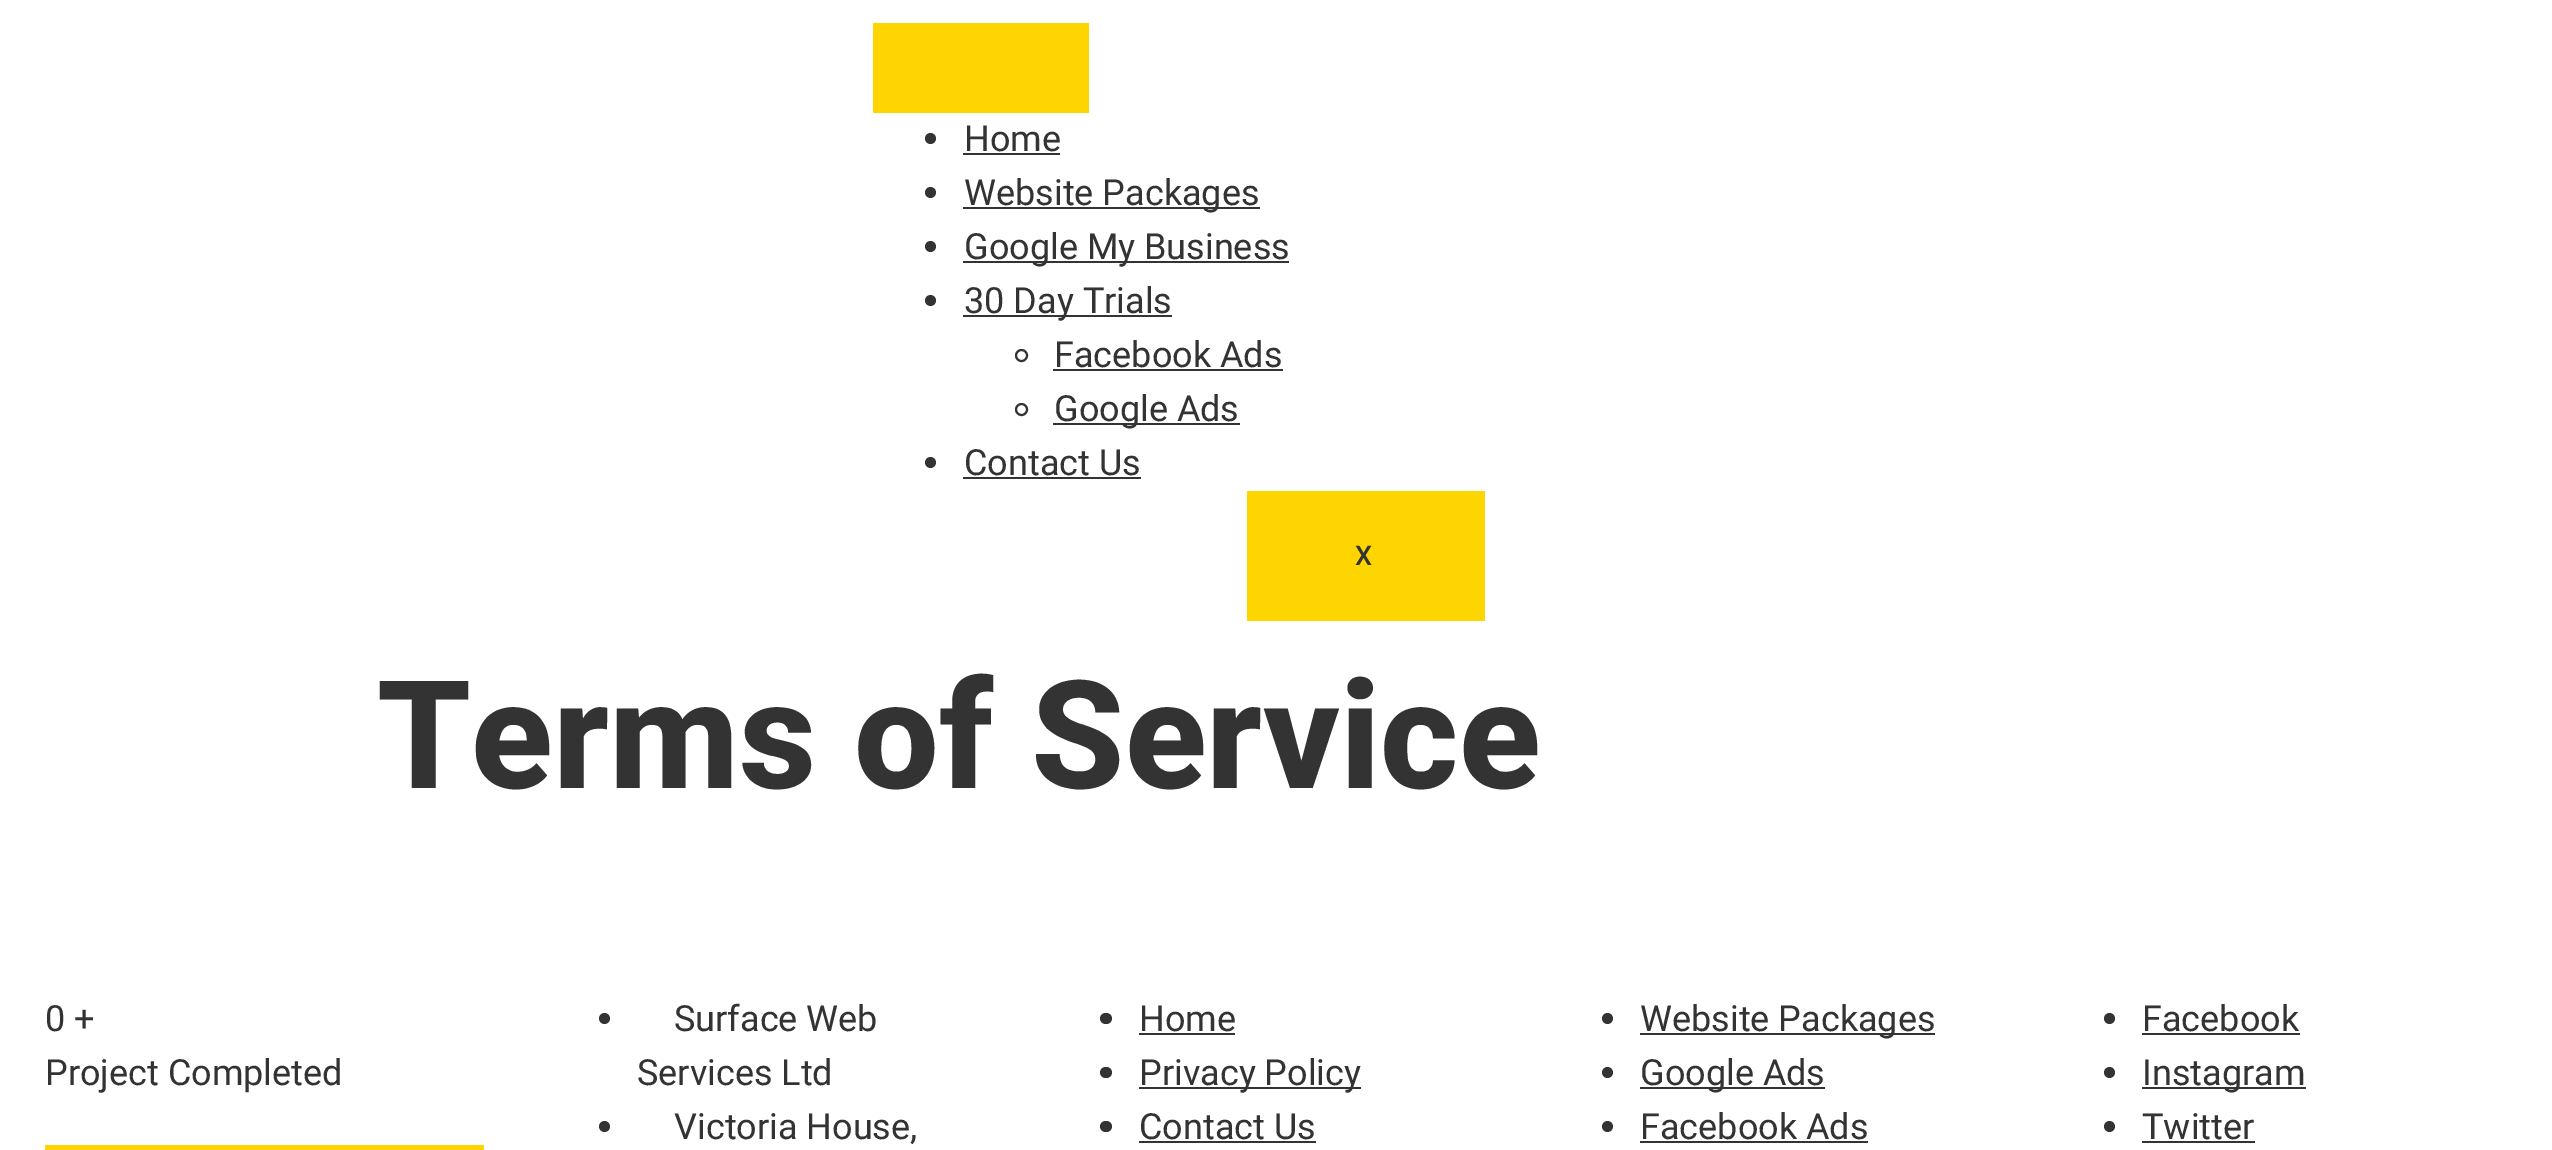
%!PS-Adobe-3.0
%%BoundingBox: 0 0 2552 1150
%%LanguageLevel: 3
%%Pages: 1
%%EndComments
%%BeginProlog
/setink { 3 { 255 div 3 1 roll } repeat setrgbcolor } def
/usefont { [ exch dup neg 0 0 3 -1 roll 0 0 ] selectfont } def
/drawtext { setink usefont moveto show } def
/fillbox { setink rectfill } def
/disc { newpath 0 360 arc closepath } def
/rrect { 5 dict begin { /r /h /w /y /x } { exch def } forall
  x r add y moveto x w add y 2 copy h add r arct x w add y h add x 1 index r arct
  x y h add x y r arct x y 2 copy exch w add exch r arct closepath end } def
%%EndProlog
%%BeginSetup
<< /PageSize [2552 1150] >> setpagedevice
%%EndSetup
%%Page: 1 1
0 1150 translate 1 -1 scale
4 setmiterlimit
0 0 2552 1150 255 255 255 fillbox
873 23 216 90 255 213 0 fillbox
51 51 51 setink
930.5 138.5 5.5 disc fill
(Home) 964 151 /Roboto-Regular 36 51 51 51 drawtext
963 153 97 2 51 51 51 fillbox
930.5 192.5 5.5 disc fill
963 207 297 2 51 51 51 fillbox
(Website Packages) 964 205 /Roboto-Regular 36 51 51 51 drawtext
930.5 246.5 5.5 disc fill
963 261 326 2 51 51 51 fillbox
(Google My Business) 964 259 /Roboto-Regular 36 51 51 51 drawtext
930.5 300.5 5.5 disc fill
963 315 209 2 51 51 51 fillbox
(30 Day Trials) 964 313 /Roboto-Regular 36 51 51 51 drawtext
2 setlinewidth
1021.5 355.5 5.5 disc stroke
(Facebook Ads) 1054 367 /Roboto-Regular 36 51 51 51 drawtext
1053 369 230 2 51 51 51 fillbox
1021.5 409.5 5.5 disc stroke
1053 423 187 2 51 51 51 fillbox
(Google Ads) 1054 421 /Roboto-Regular 36 51 51 51 drawtext
930.5 462.5 5.5 disc fill
(Contact Us) 964 475 /Roboto-Regular 36 51 51 51 drawtext
963 477 178 2 51 51 51 fillbox
1247 491 238 130 255 213 0 fillbox
/Roboto-Medium 27 usefont
51 51 51 setink
1355 565 moveto 4 0 (X) ashow
(Terms of Service) 377 788 /Roboto-ExtraBold 150.75 51 51 51 drawtext
(0 +) 45 1031 /Roboto-Regular 36 51 51 51 drawtext
(Project Completed) 45 1085 /Roboto-Regular 36 51 51 51 drawtext
45 1145 439 5 255 213 0 fillbox
51 51 51 setink
604.5 1018.5 5.5 disc fill
(Surface Web) 674 1031 /Roboto-Regular 36 51 51 51 drawtext
(Services Ltd) 637 1085 /Roboto-Regular 36 51 51 51 drawtext
604.5 1126.5 5.5 disc fill
(Victoria House,) 674 1139 /Roboto-Regular 36 51 51 51 drawtext
1100 1013 12 11 5.5 rrect fill
(Home) 1139 1031 /Roboto-Regular 36 51 51 51 drawtext
1139 1033 96 2 51 51 51 fillbox
1100 1067 12 11 5.5 rrect fill
1139 1087 222 2 51 51 51 fillbox
(Privacy Policy) 1139 1085 /Roboto-Regular 36 51 51 51 drawtext
1100 1121 12 11 5.5 rrect fill
(Contact Us) 1139 1139 /Roboto-Regular 36 51 51 51 drawtext
1139 1141 177 2 51 51 51 fillbox
1607.5 1018.5 5.5 disc fill
1640 1033 295 2 51 51 51 fillbox
(Website Packages) 1640 1031 /Roboto-Regular 36 51 51 51 drawtext
1607.5 1072.5 5.5 disc fill
1640 1087 185 2 51 51 51 fillbox
(Google Ads) 1640 1085 /Roboto-Regular 36 51 51 51 drawtext
1607.5 1126.5 5.5 disc fill
(Facebook Ads) 1640 1139 /Roboto-Regular 36 51 51 51 drawtext
1640 1141 228 2 51 51 51 fillbox
2109.5 1018.5 5.5 disc fill
(Facebook) 2142 1031 /Roboto-Regular 36 51 51 51 drawtext
2142 1033 158 2 51 51 51 fillbox
2109.5 1072.5 5.5 disc fill
2142 1087 164 2 51 51 51 fillbox
(Instagram) 2142 1085 /Roboto-Regular 36 51 51 51 drawtext
2109.5 1126.5 5.5 disc fill
(Twitter) 2142 1139 /Roboto-Regular 36 51 51 51 drawtext
2142 1141 113 2 51 51 51 fillbox
showpage
%%EOF
